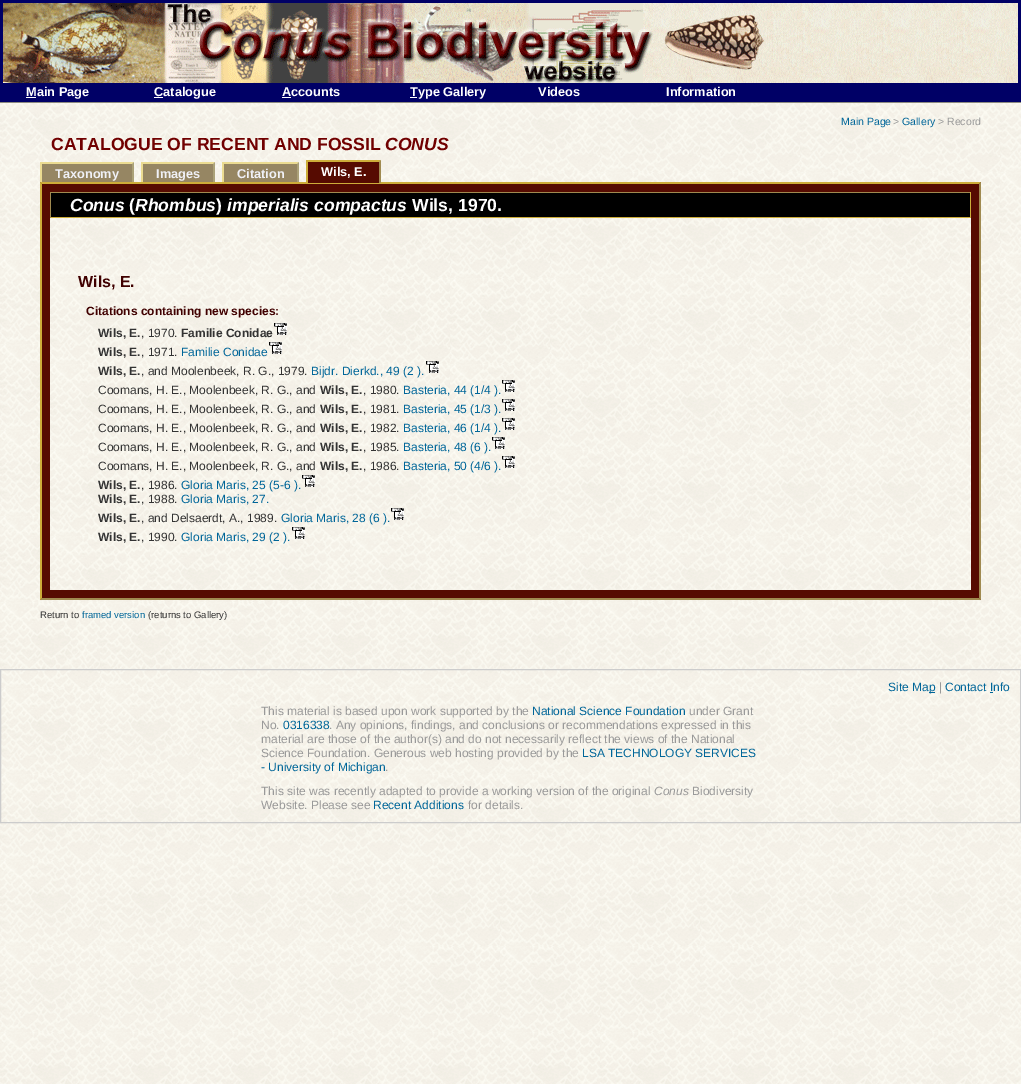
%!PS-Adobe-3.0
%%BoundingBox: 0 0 1021 1084
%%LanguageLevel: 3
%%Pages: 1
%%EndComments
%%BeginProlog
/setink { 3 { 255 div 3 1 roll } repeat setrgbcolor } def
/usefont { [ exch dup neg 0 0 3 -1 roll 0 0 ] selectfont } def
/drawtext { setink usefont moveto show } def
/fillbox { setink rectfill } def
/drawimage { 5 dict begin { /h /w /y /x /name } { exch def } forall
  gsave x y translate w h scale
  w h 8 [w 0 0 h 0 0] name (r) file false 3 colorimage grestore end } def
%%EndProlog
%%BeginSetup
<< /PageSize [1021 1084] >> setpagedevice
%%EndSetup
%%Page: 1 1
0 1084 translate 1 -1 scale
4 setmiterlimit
0 0 1021 1084 255 255 255 fillbox
(assets/img1.rgb) 0 103 1021 981 drawimage
(assets/img2.rgb) 773 3 245 80 drawimage
0 0 1021 3 0 0 102 fillbox
1018 0 3 83 0 0 102 fillbox
0 0 3 83 0 0 102 fillbox
(assets/img3.rgb) 3 3 770 80 drawimage
0 83 1021 19 0 0 102 fillbox
0 102 1021 1 141 139 129 fillbox
26 97 10 1 255 255 255 fillbox
(Main Page) 26 96 /LiberationSans-Bold 12.75 255 255 255 drawtext
154 97 9 1 255 255 255 fillbox
(Catalogue) 154 96 /LiberationSans-Bold 12.75 255 255 255 drawtext
(Accounts) 282 96 /LiberationSans-Bold 12.75 255 255 255 drawtext
282 97 9 1 255 255 255 fillbox
410 97 7 1 255 255 255 fillbox
(Type Gallery) 410 96 /LiberationSans-Bold 12.75 255 255 255 drawtext
(Videos) 538 96 /LiberationSans-Bold 12.75 255 255 255 drawtext
(Information) 666 96 /LiberationSans-Bold 12.75 255 255 255 drawtext
(Main Page) 841 125 /LiberationSans-Regular 10.5 0 102 153 drawtext
(>) 893 125 /LiberationSans-Regular 10.5 153 153 153 drawtext
(Gallery) 902 125 /LiberationSans-Regular 10.5 0 102 153 drawtext
(> Record) 938 125 /LiberationSans-Regular 10.5 153 153 153 drawtext
(CATALOGUE OF RECENT AND FOSSIL) 51 150 /LiberationSans-Bold 17.6 113 0 0 drawtext
(CONUS) 385 150 /LiberationSans-BoldItalic 17.6 113 0 0 drawtext
42 164 90 18 150 134 99 fillbox
(Taxonomy) 55 178 /LiberationSans-Bold 12.75 240 241 247 drawtext
235 219 145 setink
40 162 moveto 134 162 lineto 132 164 lineto 42 164 lineto closepath fill
171 161 120 setink
134 162 moveto 134 183 lineto 132 183 lineto 132 164 lineto closepath fill
40 162 2 21 235 219 145 fillbox
143 164 70 18 150 134 99 fillbox
(Images) 156 178 /LiberationSans-Bold 12.75 240 241 247 drawtext
235 219 145 setink
141 162 moveto 215 162 lineto 213 164 lineto 143 164 lineto closepath fill
171 161 120 setink
215 162 moveto 215 183 lineto 213 183 lineto 213 164 lineto closepath fill
141 162 2 21 235 219 145 fillbox
224 164 73 18 150 134 99 fillbox
(Citation) 237 178 /LiberationSans-Bold 12.75 240 241 247 drawtext
235 219 145 setink
222 162 moveto 299 162 lineto 297 164 lineto 224 164 lineto closepath fill
171 161 120 setink
299 162 moveto 299 183 lineto 297 183 lineto 297 164 lineto closepath fill
222 162 2 21 235 219 145 fillbox
40 182 941 418 86 11 1 fillbox
205 173 57 setink
40 182 moveto 981 182 lineto 979 184 lineto 42 184 lineto closepath fill
308 162 71 21 86 11 1 fillbox
(Wils, E.) 321 176 /LiberationSans-Bold 12.75 255 255 255 drawtext
205 173 57 setink
306 160 moveto 381 160 lineto 379 162 lineto 308 162 lineto closepath fill
160 138 80 setink
381 160 moveto 381 183 lineto 379 183 lineto 379 162 lineto closepath fill
306 160 2 23 205 173 57 fillbox
160 138 80 setink
981 182 moveto 981 600 lineto 979 598 lineto 979 184 lineto closepath fill
981 600 moveto 40 600 lineto 42 598 lineto 979 598 lineto closepath fill
205 173 57 setink
40 600 moveto 40 182 lineto 42 184 lineto 42 598 lineto closepath fill
(assets/img4.rgb) 50 218 921 372 drawimage
51 193 919 24 0 0 0 fillbox
50 192 921 1 160 138 80 fillbox
970 192 1 26 205 173 57 fillbox
50 217 921 1 205 173 57 fillbox
50 192 1 26 160 138 80 fillbox
(Conus) 70 211 /LiberationSans-BoldItalic 17.6 255 255 255 drawtext
(\() 129 211 /LiberationSans-Bold 17.6 255 255 255 drawtext
(Rhombus) 135 211 /LiberationSans-BoldItalic 17.6 255 255 255 drawtext
(\)) 216 211 /LiberationSans-Bold 17.6 255 255 255 drawtext
(imperialis compactus) 227 211 /LiberationSans-BoldItalic 17.6 255 255 255 drawtext
(Wils, 1970.) 412 211 /LiberationSans-Bold 17.6 255 255 255 drawtext
(Wils, E.) 78 287 /LiberationSans-Bold 16 64 0 0 drawtext
(Citations containing new species:) 86 315 /LiberationSans-Bold 12 64 0 0 drawtext
(Wils, E.) 98 337 /LiberationSans-Bold 12 51 51 51 drawtext
(, 1970.) 141 337 /LiberationSans-Regular 12 51 51 51 drawtext
(Familie Conidae) 181 337 /LiberationSans-Bold 12 51 51 51 drawtext
(assets/img5.rgb) 274 323 13 12 drawimage
(Wils, E.) 98 356 /LiberationSans-Bold 12 51 51 51 drawtext
(, 1971.) 141 356 /LiberationSans-Regular 12 51 51 51 drawtext
(Familie Conidae) 181 356 /LiberationSans-Regular 12 0 102 153 drawtext
(assets/img6.rgb) 269 342 13 12 drawimage
(Wils, E.) 98 375 /LiberationSans-Bold 12 51 51 51 drawtext
(, and Moolenbeek, R. G., 1979.) 141 375 /LiberationSans-Regular 12 51 51 51 drawtext
(Bijdr. Dierkd., 49 \(2 \).) 311 375 /LiberationSans-Regular 12 0 102 153 drawtext
(assets/img7.rgb) 426 361 13 12 drawimage
(Coomans, H. E., Moolenbeek, R. G., and) 98 394 /LiberationSans-Regular 12 51 51 51 drawtext
(Wils, E.) 320 394 /LiberationSans-Bold 12 51 51 51 drawtext
(, 1980.) 363 394 /LiberationSans-Regular 12 51 51 51 drawtext
(Basteria, 44 \(1/4 \).) 403 394 /LiberationSans-Regular 12 0 102 153 drawtext
(assets/img8.rgb) 502 380 13 12 drawimage
(Coomans, H. E., Moolenbeek, R. G., and) 98 413 /LiberationSans-Regular 12 51 51 51 drawtext
(Wils, E.) 320 413 /LiberationSans-Bold 12 51 51 51 drawtext
(, 1981.) 363 413 /LiberationSans-Regular 12 51 51 51 drawtext
(Basteria, 45 \(1/3 \).) 403 413 /LiberationSans-Regular 12 0 102 153 drawtext
(assets/img9.rgb) 502 399 13 12 drawimage
(Coomans, H. E., Moolenbeek, R. G., and) 98 432 /LiberationSans-Regular 12 51 51 51 drawtext
(Wils, E.) 320 432 /LiberationSans-Bold 12 51 51 51 drawtext
(, 1982.) 363 432 /LiberationSans-Regular 12 51 51 51 drawtext
(Basteria, 46 \(1/4 \).) 403 432 /LiberationSans-Regular 12 0 102 153 drawtext
(assets/img10.rgb) 502 418 13 12 drawimage
(Coomans, H. E., Moolenbeek, R. G., and) 98 451 /LiberationSans-Regular 12 51 51 51 drawtext
(Wils, E.) 320 451 /LiberationSans-Bold 12 51 51 51 drawtext
(, 1985.) 363 451 /LiberationSans-Regular 12 51 51 51 drawtext
(Basteria, 48 \(6 \).) 403 451 /LiberationSans-Regular 12 0 102 153 drawtext
(assets/img11.rgb) 492 437 13 12 drawimage
(Coomans, H. E., Moolenbeek, R. G., and) 98 470 /LiberationSans-Regular 12 51 51 51 drawtext
(Wils, E.) 320 470 /LiberationSans-Bold 12 51 51 51 drawtext
(, 1986.) 363 470 /LiberationSans-Regular 12 51 51 51 drawtext
(Basteria, 50 \(4/6 \).) 403 470 /LiberationSans-Regular 12 0 102 153 drawtext
(assets/img12.rgb) 502 456 13 12 drawimage
(Wils, E.) 98 489 /LiberationSans-Bold 12 51 51 51 drawtext
(, 1986.) 141 489 /LiberationSans-Regular 12 51 51 51 drawtext
(Gloria Maris, 25 \(5-6 \).) 181 489 /LiberationSans-Regular 12 0 102 153 drawtext
(assets/img13.rgb) 302 475 13 12 drawimage
(Wils, E.) 98 503 /LiberationSans-Bold 12 51 51 51 drawtext
(, 1988.) 141 503 /LiberationSans-Regular 12 51 51 51 drawtext
(Gloria Maris, 27.) 181 503 /LiberationSans-Regular 12 0 102 153 drawtext
(Wils, E.) 98 522 /LiberationSans-Bold 12 51 51 51 drawtext
(, and Delsaerdt, A., 1989.) 141 522 /LiberationSans-Regular 12 51 51 51 drawtext
(Gloria Maris, 28 \(6 \).) 281 522 /LiberationSans-Regular 12 0 102 153 drawtext
(assets/img14.rgb) 391 508 13 12 drawimage
(Wils, E.) 98 541 /LiberationSans-Bold 12 51 51 51 drawtext
(, 1990.) 141 541 /LiberationSans-Regular 12 51 51 51 drawtext
(Gloria Maris, 29 \(2 \).) 181 541 /LiberationSans-Regular 12 0 102 153 drawtext
(assets/img15.rgb) 292 527 13 12 drawimage
(Return to) 40 618 /LiberationSans-Regular 9.5 51 51 51 drawtext
(framed version) 82 618 /LiberationSans-Regular 9.5 0 102 153 drawtext
(\(returns to Gallery\)) 148 618 /LiberationSans-Regular 9.5 51 51 51 drawtext
204 204 204 setink
0.5 669.5 1020 153 rectstroke
(Site Ma) 888 691 /LiberationSans-Regular 12 0 102 153 drawtext
929 692 6 1 0 102 153 fillbox
(p) 929 691 /LiberationSans-Regular 12 0 102 153 drawtext
(|) 939 691 /LiberationSans-Regular 12 153 153 153 drawtext
(Contact Info) 945 691 /LiberationSans-Regular 12 0 102 153 drawtext
990 692 3 1 0 102 153 fillbox
(This material is based upon work supported by the) 261 715 /LiberationSans-Regular 12 153 153 153 drawtext
(National Science Foundation) 532 715 /LiberationSans-Regular 12 0 102 153 drawtext
(under Grant) 689 715 /LiberationSans-Regular 12 153 153 153 drawtext
(No.) 261 729 /LiberationSans-Regular 12 153 153 153 drawtext
(0316338) 283 729 /LiberationSans-Regular 12 0 102 153 drawtext
(. Any opinions, findings, and conclusions or recommendations expressed in this) 329 729 /LiberationSans-Regular 12 153 153 153 drawtext
(material are those of the author\(s\) and do not necessarily reflect the views of the National) 261 743 /LiberationSans-Regular 12 153 153 153 drawtext
(Science Foundation. Generous web hosting provided by the) 261 757 /LiberationSans-Regular 12 153 153 153 drawtext
(LSA TECHNOLOGY SERVICES) 582 757 /LiberationSans-Regular 12 0 102 153 drawtext
(- University of Michigan) 261 771 /LiberationSans-Regular 12 0 102 153 drawtext
(.) 385 771 /LiberationSans-Regular 12 153 153 153 drawtext
(This site was recently adapted to provide a working version of the original) 261 795 /LiberationSans-Regular 12 153 153 153 drawtext
(Conus) 654 795 /LiberationSans-Italic 12 153 153 153 drawtext
(Biodiversity) 692 795 /LiberationSans-Regular 12 153 153 153 drawtext
(Website. Please see) 261 809 /LiberationSans-Regular 12 153 153 153 drawtext
(Recent Additions) 373 809 /LiberationSans-Regular 12 0 102 153 drawtext
(for details.) 468 809 /LiberationSans-Regular 12 153 153 153 drawtext
showpage
%%EOF
